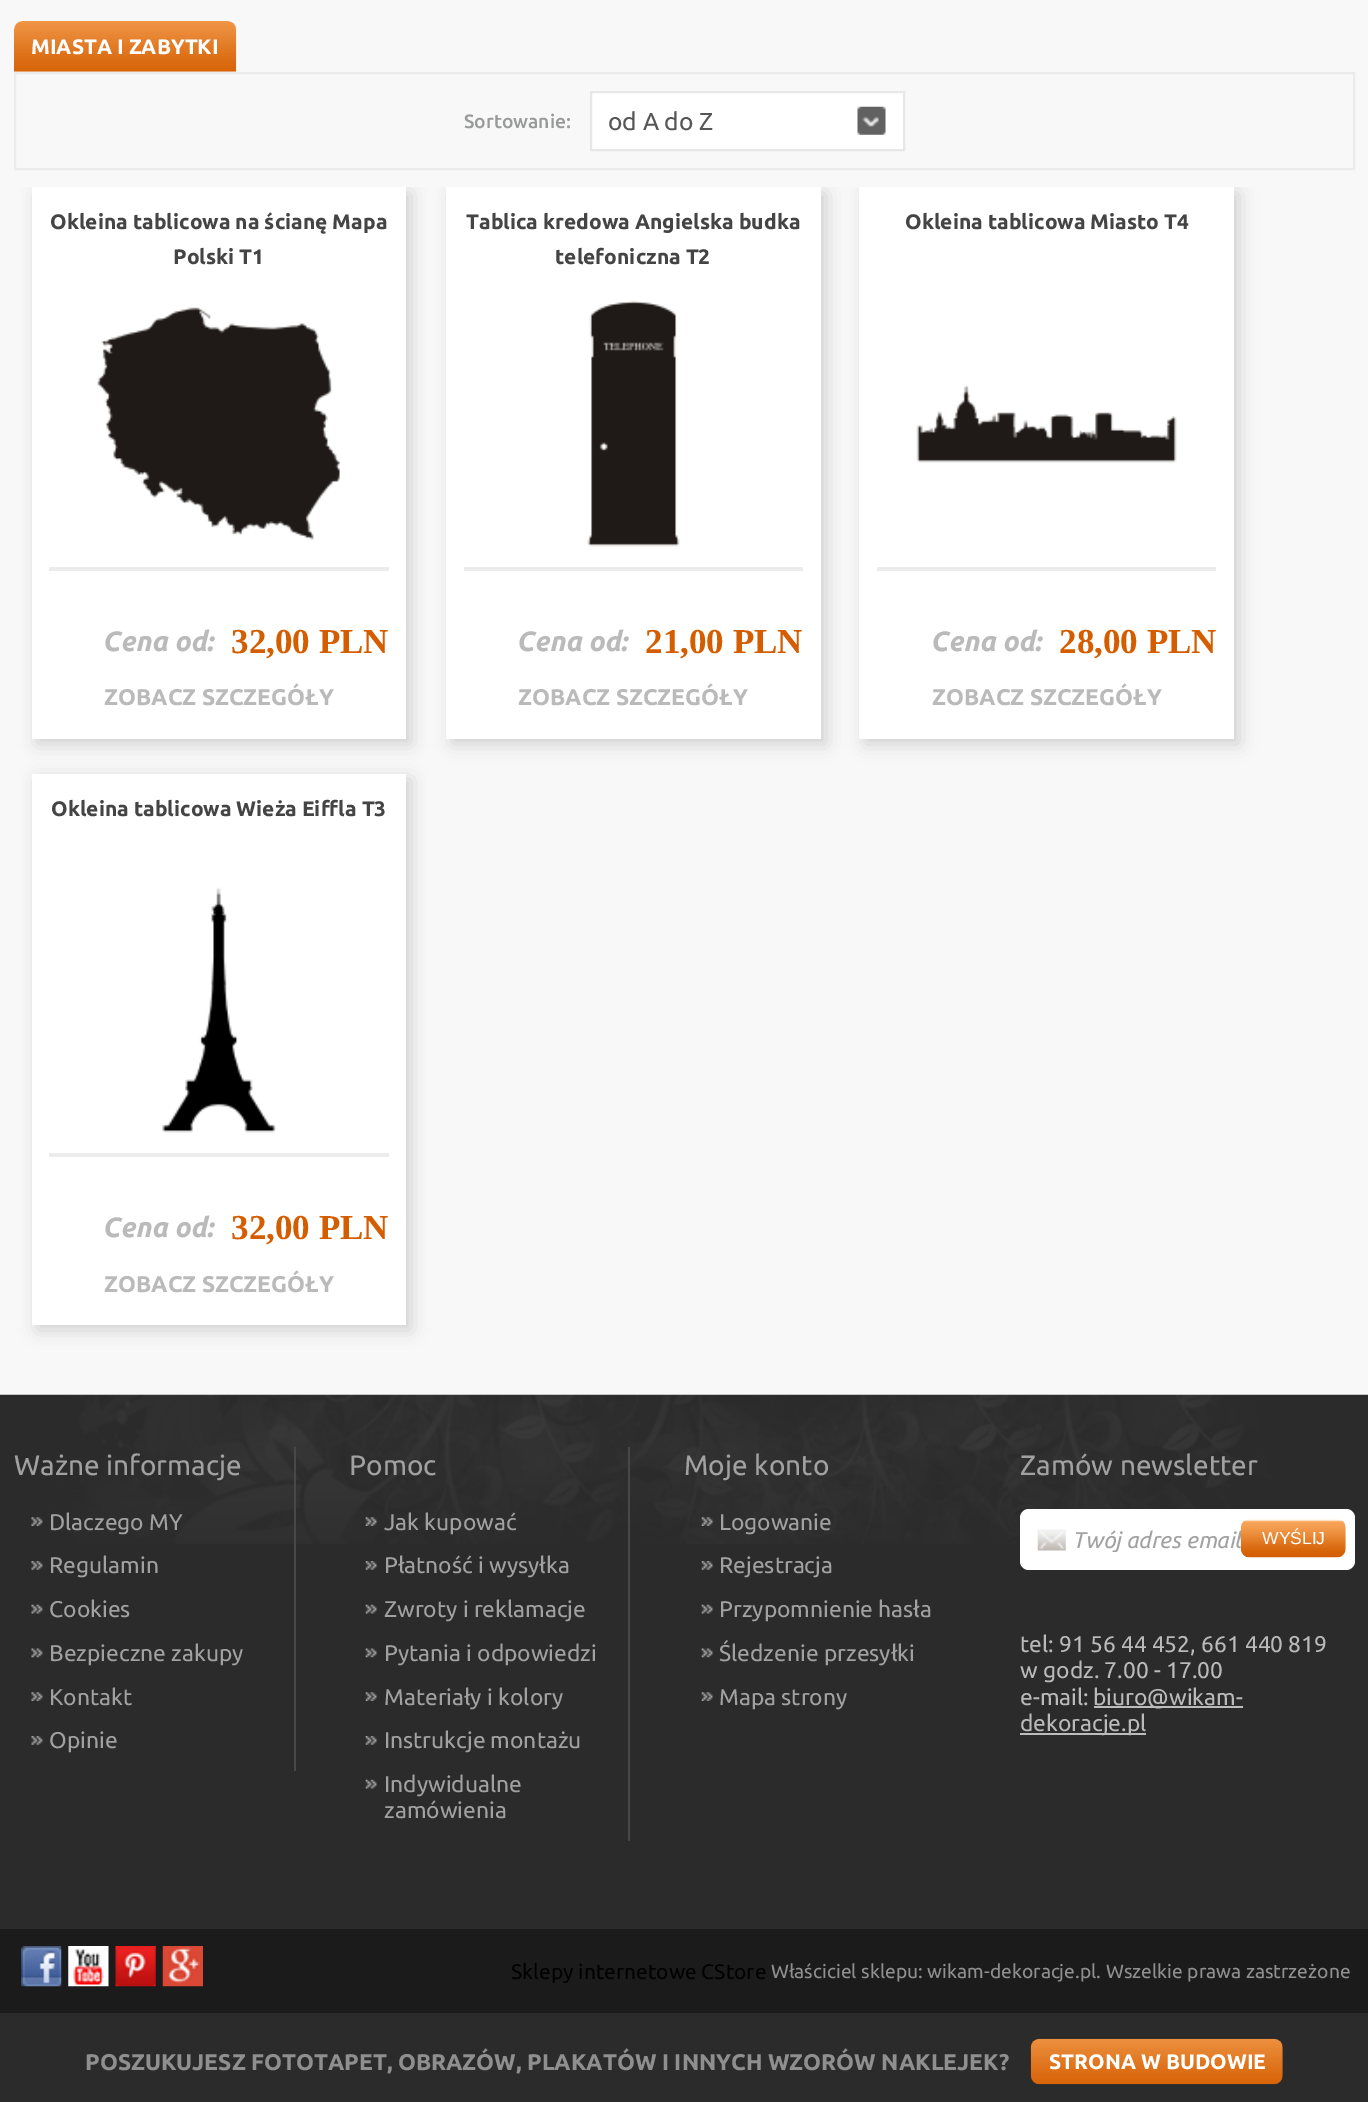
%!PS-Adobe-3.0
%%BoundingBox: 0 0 1368 2102
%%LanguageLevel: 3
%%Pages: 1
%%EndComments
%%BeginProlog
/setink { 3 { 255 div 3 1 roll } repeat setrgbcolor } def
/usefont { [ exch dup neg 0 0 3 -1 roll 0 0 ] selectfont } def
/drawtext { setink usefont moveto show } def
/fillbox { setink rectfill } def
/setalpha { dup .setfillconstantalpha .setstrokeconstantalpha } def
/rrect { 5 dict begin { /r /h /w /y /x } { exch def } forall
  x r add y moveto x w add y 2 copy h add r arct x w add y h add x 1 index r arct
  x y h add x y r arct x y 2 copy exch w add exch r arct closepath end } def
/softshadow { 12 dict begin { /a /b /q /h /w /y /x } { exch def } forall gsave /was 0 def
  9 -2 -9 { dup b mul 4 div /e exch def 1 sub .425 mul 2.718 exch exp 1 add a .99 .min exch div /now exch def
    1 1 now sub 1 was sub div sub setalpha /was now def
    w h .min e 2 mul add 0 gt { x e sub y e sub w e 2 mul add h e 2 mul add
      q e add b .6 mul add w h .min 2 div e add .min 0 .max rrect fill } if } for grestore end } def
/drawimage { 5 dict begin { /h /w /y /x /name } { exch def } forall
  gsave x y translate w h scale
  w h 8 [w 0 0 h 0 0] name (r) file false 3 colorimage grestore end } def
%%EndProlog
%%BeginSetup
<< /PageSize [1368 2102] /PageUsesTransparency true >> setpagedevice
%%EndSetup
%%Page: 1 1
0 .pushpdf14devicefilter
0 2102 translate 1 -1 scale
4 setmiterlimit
0 0 1368 2102 248 248 248 fillbox
(assets/img1.rgb) 14 21 223 51 drawimage
(MIASTA I ZABYTKI) 31 54 /Ubuntu-Bold 21 255 255 255 drawtext
235 235 235 setink
2 setlinewidth
15 73 1339 96 rectstroke
(Sortowanie:) 464 128 /Ubuntu-Medium 19.25 152 153 153 drawtext
255 255 255 setink
591 92 moveto 904 92 lineto 904 150 lineto 591 150 lineto closepath gsave fill grestore
231 231 231 setink
stroke
(od A do Z) 608 130 /Ubuntu-Regular 24.5 86 86 86 drawtext
(assets/img2.rgb) 857 106 29 29 drawimage
gsave
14 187 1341 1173 rectclip
206 206 206 setink
37 193 374 551 0 9 1 softshadow
grestore
32 187 374 552 255 255 255 fillbox
(Okleina tablicowa na ścianę Mapa) 50 229 /Ubuntu-Bold 21 68 68 68 drawtext
(Polski T1) 173 264 /Ubuntu-Bold 21 68 68 68 drawtext
49 567 340 4 236 236 236 fillbox
(assets/img3.rgb) 97 307 243 233 drawimage
(Cena od:) 102 651 /Ubuntu-BoldItalic 28 186 186 186 drawtext
(32,00 PLN) 231 653 /LiberationSerif-Bold 35 212 93 0 drawtext
(ZOBACZ SZCZEGÓŁY) 104 705 /Ubuntu-Bold 22.75 186 186 186 drawtext
gsave
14 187 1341 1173 rectclip
206 206 206 setink
452 193 374 551 0 9 1 softshadow
grestore
446 187 375 552 255 255 255 fillbox
(Tablica kredowa Angielska budka) 466 229 /Ubuntu-Bold 21 68 68 68 drawtext
(telefoniczna T2) 555 264 /Ubuntu-Bold 21 68 68 68 drawtext
464 567 339 4 236 236 236 fillbox
(assets/img4.rgb) 587 300 93 247 drawimage
(Cena od:) 516 651 /Ubuntu-BoldItalic 28 186 186 186 drawtext
(21,00 PLN) 645 653 /LiberationSerif-Bold 35 212 93 0 drawtext
(ZOBACZ SZCZEGÓŁY) 518 705 /Ubuntu-Bold 22.75 186 186 186 drawtext
gsave
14 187 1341 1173 rectclip
206 206 206 setink
865 193 374 551 0 9 1 softshadow
grestore
859 187 375 552 255 255 255 fillbox
(Okleina tablicowa Miasto T4) 905 229 /Ubuntu-Bold 21 68 68 68 drawtext
877 567 339 4 236 236 236 fillbox
(assets/img5.rgb) 916 385 261 78 drawimage
(Cena od:) 930 651 /Ubuntu-BoldItalic 28 186 186 186 drawtext
gsave
877 588 339 70 rectclip
(28,00 PLN) 1059 653 /LiberationSerif-Bold 35 212 93 0 drawtext
grestore
(ZOBACZ SZCZEGÓŁY) 932 705 /Ubuntu-Bold 22.75 186 186 186 drawtext
206 206 206 setink
37 779 374 551 0 9 1 softshadow
32 774 374 551 255 255 255 fillbox
(Okleina tablicowa Wieża Eiffla T3) 51 816 /Ubuntu-Bold 21 68 68 68 drawtext
49 1153 340 4 236 236 236 fillbox
(assets/img6.rgb) 162 887 114 246 drawimage
(Cena od:) 102 1237 /Ubuntu-BoldItalic 28 186 186 186 drawtext
(32,00 PLN) 231 1239 /LiberationSerif-Bold 35 212 93 0 drawtext
(ZOBACZ SZCZEGÓŁY) 104 1292 /Ubuntu-Bold 22.75 186 186 186 drawtext
0 1544 1368 558 43 43 43 fillbox
(assets/img7.rgb) 0 1394 1368 150 drawimage
294 1447 2 324 72 72 72 fillbox
(Ważne informacje) 14 1475 /Ubuntu-Regular 28 161 161 161 drawtext
(assets/img8.rgb) 31 1517 13 9 drawimage
(Dlaczego MY) 49 1530 /Ubuntu-Regular 22.75 161 161 161 drawtext
(assets/img9.rgb) 31 1561 13 9 drawimage
(Regulamin) 49 1573 /Ubuntu-Regular 22.75 161 161 161 drawtext
(assets/img10.rgb) 31 1604 13 10 drawimage
(Cookies) 49 1617 /Ubuntu-Regular 22.75 161 161 161 drawtext
(assets/img11.rgb) 31 1648 13 10 drawimage
(Bezpieczne zakupy) 49 1661 /Ubuntu-Regular 22.75 161 161 161 drawtext
(assets/img8.rgb) 31 1692 13 9 drawimage
(Kontakt) 49 1705 /Ubuntu-Regular 22.75 161 161 161 drawtext
(assets/img9.rgb) 31 1736 13 9 drawimage
(Opinie) 49 1748 /Ubuntu-Regular 22.75 161 161 161 drawtext
628 1447 2 394 72 72 72 fillbox
(Pomoc) 349 1475 /Ubuntu-Regular 28 161 161 161 drawtext
(assets/img12.rgb) 365 1517 13 9 drawimage
(Jak kupować) 384 1530 /Ubuntu-Regular 22.75 161 161 161 drawtext
(assets/img13.rgb) 365 1561 13 9 drawimage
(Płatność i wysyłka) 384 1573 /Ubuntu-Regular 22.75 161 161 161 drawtext
(assets/img14.rgb) 365 1604 13 10 drawimage
(Zwroty i reklamacje) 384 1617 /Ubuntu-Regular 22.75 161 161 161 drawtext
(assets/img15.rgb) 365 1648 13 10 drawimage
(Pytania i odpowiedzi) 384 1661 /Ubuntu-Regular 22.75 161 161 161 drawtext
(assets/img16.rgb) 365 1692 13 9 drawimage
(Materiały i kolory) 384 1705 /Ubuntu-Regular 22.75 161 161 161 drawtext
(assets/img13.rgb) 365 1736 13 9 drawimage
(Instrukcje montażu) 384 1748 /Ubuntu-Regular 22.75 161 161 161 drawtext
(assets/img14.rgb) 365 1779 13 10 drawimage
(Indywidualne) 384 1792 /Ubuntu-Regular 22.75 161 161 161 drawtext
(zamówienia) 384 1818 /Ubuntu-Regular 22.75 161 161 161 drawtext
(Moje konto) 684 1475 /Ubuntu-Regular 28 161 161 161 drawtext
(assets/img17.rgb) 701 1517 13 9 drawimage
(Logowanie) 719 1530 /Ubuntu-Regular 22.75 161 161 161 drawtext
(assets/img18.rgb) 701 1561 13 9 drawimage
(Rejestracja) 719 1573 /Ubuntu-Regular 22.75 161 161 161 drawtext
(assets/img19.rgb) 701 1604 13 10 drawimage
(Przypomnienie hasła) 719 1617 /Ubuntu-Regular 22.75 161 161 161 drawtext
(assets/img20.rgb) 701 1648 13 10 drawimage
(Śledzenie przesyłki) 719 1661 /Ubuntu-Regular 22.75 161 161 161 drawtext
(assets/img21.rgb) 701 1692 13 9 drawimage
(Mapa strony) 719 1705 /Ubuntu-Regular 22.75 161 161 161 drawtext
(Zamów newsletter) 1020 1475 /Ubuntu-Regular 28 161 161 161 drawtext
255 255 255 setink
1020 1509 335 61 9 rrect fill
(assets/img22.rgb) 1037 1529 29 22 drawimage
gsave
1073 1528 194 24 rectclip
(Twój adres email) 1072 1548 /Ubuntu-Italic 22.75 161 161 161 drawtext
grestore
(assets/img23.rgb) 1240 1519 106 39 drawimage
(WYŚLIJ) 1262 1544 /LiberationSans-Regular 17.5 255 255 255 drawtext
(tel: 91 56 44 452, 661 440 819) 1020 1652 /Ubuntu-Regular 22.75 186 186 186 drawtext
(w godz. 7.00 - 17.00) 1020 1678 /Ubuntu-Regular 22.75 186 186 186 drawtext
(e-mail:) 1020 1705 /Ubuntu-Regular 22.75 186 186 186 drawtext
1094 1706 149 2 189 189 189 fillbox
(biuro@wikam-) 1093 1705 /Ubuntu-Regular 22.75 186 186 186 drawtext
1020 1733 126 2 189 189 189 fillbox
(dekoracje.pl) 1020 1731 /Ubuntu-Regular 22.75 186 186 186 drawtext
0 1929 1368 84 27 27 27 fillbox
(assets/img24.rgb) 21 1946 41 41 drawimage
(assets/img25.rgb) 68 1946 41 41 drawimage
(assets/img26.rgb) 115 1946 41 41 drawimage
(assets/img27.rgb) 162 1946 41 41 drawimage
(Sklepy internetowe CStore) 511 1979 /Ubuntu-Regular 21 1 1 1 drawtext
(Właściciel sklepu: wikam-dekoracje.pl. Wszelkie prawa zastrzeżone) 771 1978 /Ubuntu-Regular 19.25 143 143 143 drawtext
(POSZUKUJESZ FOTOTAPET, OBRAZÓW, PLAKATÓW I INNYCH WZORÓW NAKLEJEK?) 85 2070 /Ubuntu-Bold 22.75 143 143 143 drawtext
(assets/img28.rgb) 1030 2038 253 47 drawimage
(STRONA W BUDOWIE) 1049 2069 /Ubuntu-Bold 21 255 255 255 drawtext
.poppdf14devicefilter showpage
%%EOF
